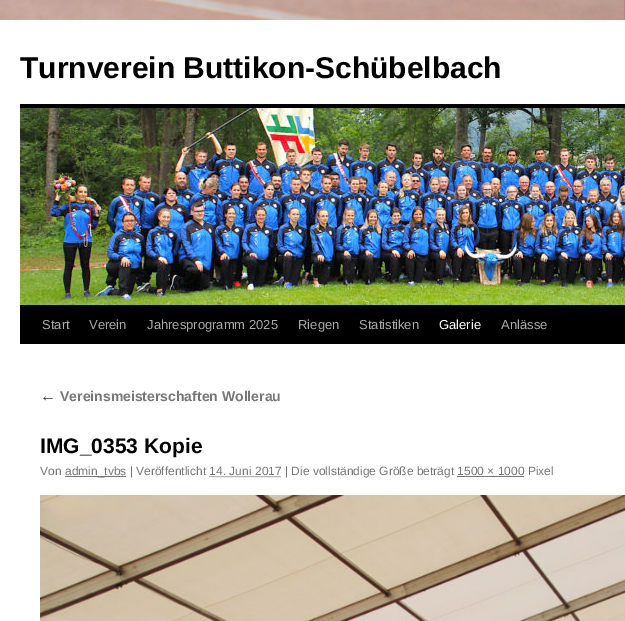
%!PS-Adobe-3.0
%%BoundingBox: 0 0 625 621
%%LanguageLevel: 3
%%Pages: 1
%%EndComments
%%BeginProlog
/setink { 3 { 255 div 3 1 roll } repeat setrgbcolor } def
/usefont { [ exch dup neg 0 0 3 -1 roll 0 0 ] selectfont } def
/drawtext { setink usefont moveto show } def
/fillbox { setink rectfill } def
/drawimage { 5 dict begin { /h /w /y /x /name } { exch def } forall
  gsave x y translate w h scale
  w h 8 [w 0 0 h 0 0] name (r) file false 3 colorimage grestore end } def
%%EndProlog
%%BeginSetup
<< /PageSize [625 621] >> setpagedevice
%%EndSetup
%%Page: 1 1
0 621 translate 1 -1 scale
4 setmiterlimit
0 0 625 621 255 255 255 fillbox
(assets/img1.rgb) 0 0 625 20 drawimage
(Turnverein Buttikon-Schübelbach) 20 78 /LiberationSans-Bold 30 0 0 0 drawtext
20 104 605 4 0 0 0 fillbox
20 305 605 39 0 0 0 fillbox
(assets/img2.rgb) 20 108 605 197 drawimage
(Start) 42 329 /LiberationSans-Regular 13 170 170 170 drawtext
(Verein) 89 329 /LiberationSans-Regular 13 170 170 170 drawtext
(Jahresprogramm 2025) 147 329 /LiberationSans-Regular 13 170 170 170 drawtext
(Riegen) 298 329 /LiberationSans-Regular 13 170 170 170 drawtext
(Statistiken) 359 329 /LiberationSans-Regular 13 170 170 170 drawtext
(Galerie) 439 329 /LiberationSans-Regular 13 255 255 255 drawtext
(Anlässe) 501 329 /LiberationSans-Regular 13 170 170 170 drawtext
(←) 40 401 /LiberationSerif-Italic 16 51 51 51 drawtext
(Vereinsmeisterschaften Wollerau) 60 401 /LiberationSans-Bold 14 119 119 119 drawtext
(IMG_0353 Kopie) 40 453 /LiberationSans-Bold 21 0 0 0 drawtext
(Von) 40 475 /LiberationSans-Regular 12 119 119 119 drawtext
65 476 61 1 119 119 119 fillbox
(admin_tvbs | Veröffentlicht 14. Juni 2017 | Die vollständige Größe beträgt 1500 × 1000 Pixel) 65 475 /LiberationSans-Regular 12 119 119 119 drawtext
[1 1] 0 setdash
209.5 476.5 moveto 281.5 476.5 lineto stroke
457 476 67 1 119 119 119 fillbox
(assets/img3.rgb) 40 495 585 126 drawimage
showpage
%%EOF
